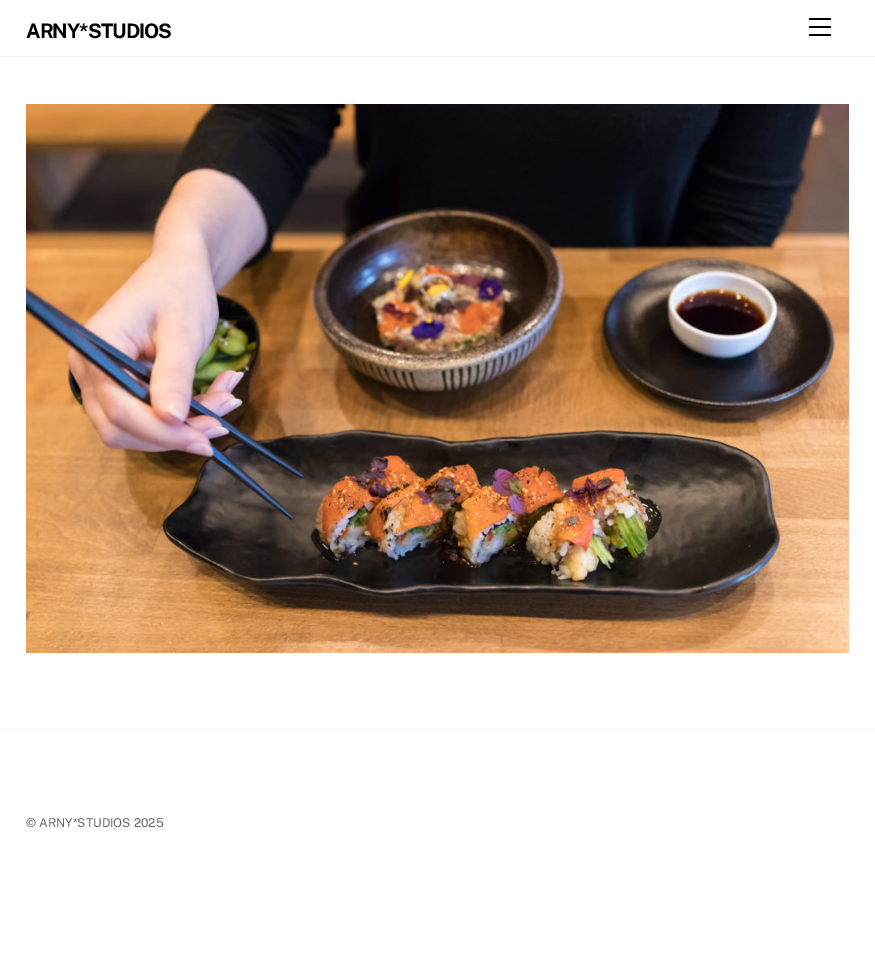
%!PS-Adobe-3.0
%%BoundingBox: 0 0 875 967
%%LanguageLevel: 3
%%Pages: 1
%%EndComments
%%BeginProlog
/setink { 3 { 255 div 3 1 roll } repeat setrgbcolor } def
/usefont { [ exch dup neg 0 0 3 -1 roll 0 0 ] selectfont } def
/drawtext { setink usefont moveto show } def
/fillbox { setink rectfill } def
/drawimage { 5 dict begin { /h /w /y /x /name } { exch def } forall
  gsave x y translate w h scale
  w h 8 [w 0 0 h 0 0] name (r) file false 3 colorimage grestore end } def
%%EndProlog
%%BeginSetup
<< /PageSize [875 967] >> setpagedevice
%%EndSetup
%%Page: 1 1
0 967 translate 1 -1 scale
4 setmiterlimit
0 0 875 967 255 255 255 fillbox
0 56 875 1 242 242 242 fillbox
/PublicSans-Bold 20 usefont
0 0 0 setink
26 38 moveto -1 0 (ARNY*STUDIOS) ashow
809 34 22 2 0 0 0 fillbox
809 18 22 2 0 0 0 fillbox
809 26 22 2 0 0 0 fillbox
(assets/img1.rgb) 26 104 823 549 drawimage
0 729 875 1 242 242 242 fillbox
(© ARNY*STUDIOS 2025) 26 827 /PublicSans-Regular 12.25 102 102 102 drawtext
showpage
%%EOF
